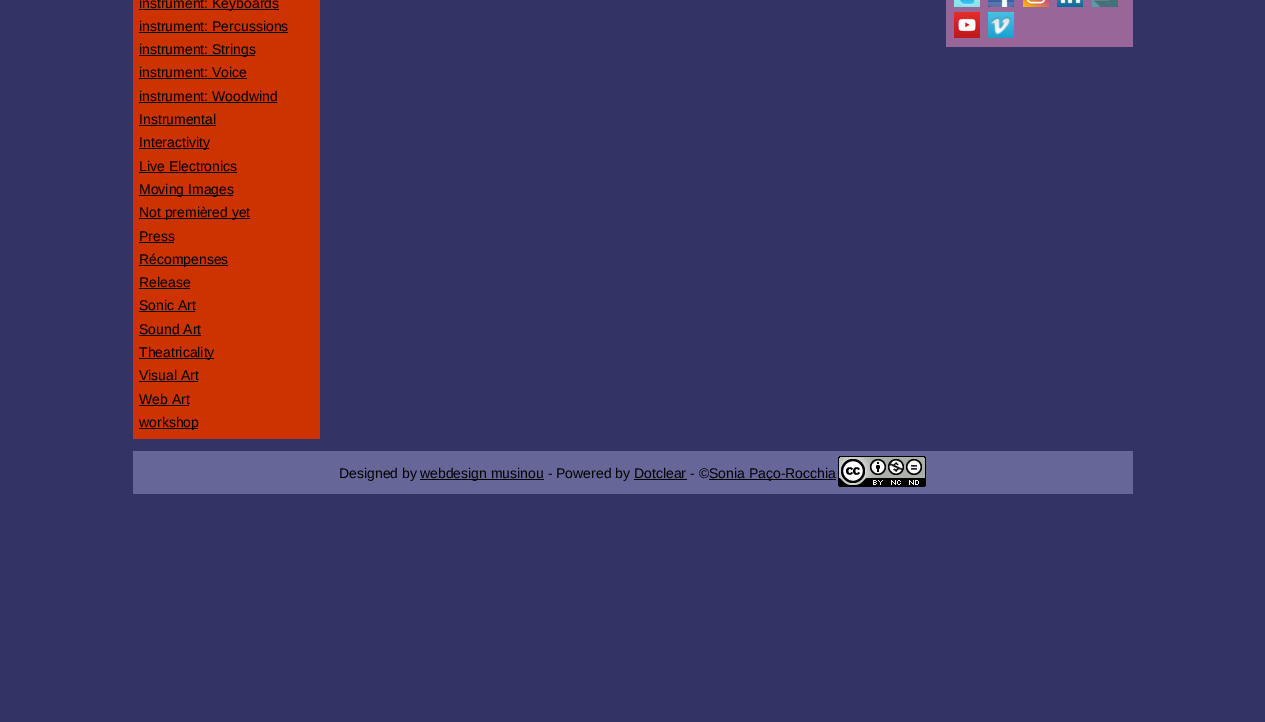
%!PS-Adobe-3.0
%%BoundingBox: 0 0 1265 722
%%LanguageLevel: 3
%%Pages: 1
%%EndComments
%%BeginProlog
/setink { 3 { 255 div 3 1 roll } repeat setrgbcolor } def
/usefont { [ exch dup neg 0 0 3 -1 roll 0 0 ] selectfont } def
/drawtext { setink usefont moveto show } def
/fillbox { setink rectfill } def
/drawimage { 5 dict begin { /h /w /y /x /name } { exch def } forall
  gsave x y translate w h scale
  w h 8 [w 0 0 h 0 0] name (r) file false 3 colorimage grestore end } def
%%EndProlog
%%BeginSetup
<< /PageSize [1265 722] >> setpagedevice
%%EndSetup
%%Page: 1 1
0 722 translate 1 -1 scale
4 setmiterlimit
0 0 1265 722 51 51 102 fillbox
133 0 187 439 204 51 0 fillbox
139 9 140 1 0 0 0 fillbox
(instrument: Keyboards) 139 8 /LiberationSans-Regular 14 0 0 0 drawtext
(instrument: Percussions) 139 31 /LiberationSans-Regular 14 0 0 0 drawtext
139 32 149 1 0 0 0 fillbox
139 55 116 1 0 0 0 fillbox
(instrument: Strings) 139 54 /LiberationSans-Regular 14 0 0 0 drawtext
(instrument: Voice) 139 77 /LiberationSans-Regular 14 0 0 0 drawtext
139 78 108 1 0 0 0 fillbox
(instrument: Woodwind) 139 101 /LiberationSans-Regular 14 0 0 0 drawtext
139 102 138 1 0 0 0 fillbox
(Instrumental) 139 124 /LiberationSans-Regular 14 0 0 0 drawtext
139 125 77 1 0 0 0 fillbox
139 148 70 1 0 0 0 fillbox
(Interactivity) 139 147 /LiberationSans-Regular 14 0 0 0 drawtext
(Live Electronics) 139 171 /LiberationSans-Regular 14 0 0 0 drawtext
139 172 98 1 0 0 0 fillbox
139 195 94 1 0 0 0 fillbox
(Moving Images) 139 194 /LiberationSans-Regular 14 0 0 0 drawtext
139 218 111 1 0 0 0 fillbox
(Not premièred yet) 139 217 /LiberationSans-Regular 14 0 0 0 drawtext
(Press) 139 241 /LiberationSans-Regular 14 0 0 0 drawtext
139 242 35 1 0 0 0 fillbox
139 265 89 1 0 0 0 fillbox
(Récompenses) 139 264 /LiberationSans-Regular 14 0 0 0 drawtext
(Release) 139 287 /LiberationSans-Regular 14 0 0 0 drawtext
139 288 51 1 0 0 0 fillbox
(Sonic Art) 139 310 /LiberationSans-Regular 14 0 0 0 drawtext
139 311 56 1 0 0 0 fillbox
(Sound Art) 139 334 /LiberationSans-Regular 14 0 0 0 drawtext
139 335 62 1 0 0 0 fillbox
139 358 75 1 0 0 0 fillbox
(Theatricality) 139 357 /LiberationSans-Regular 14 0 0 0 drawtext
(Visual Art) 139 380 /LiberationSans-Regular 14 0 0 0 drawtext
139 381 59 1 0 0 0 fillbox
(Web Art) 139 404 /LiberationSans-Regular 14 0 0 0 drawtext
139 405 50 1 0 0 0 fillbox
139 428 59 1 0 0 0 fillbox
(workshop) 139 427 /LiberationSans-Regular 14 0 0 0 drawtext
946 0 187 47 153 102 153 fillbox
(assets/img1.rgb) 954 0 26 7 drawimage
(assets/img2.rgb) 988 0 26 7 drawimage
(assets/img3.rgb) 1023 0 26 7 drawimage
(assets/img4.rgb) 1057 0 26 7 drawimage
(assets/img5.rgb) 1092 0 26 7 drawimage
(assets/img6.rgb) 954 12 26 26 drawimage
(assets/img7.rgb) 988 12 26 26 drawimage
133 451 1000 43 102 102 153 fillbox
(Designed by) 339 478 /LiberationSans-Regular 14 0 0 0 drawtext
420 479 124 1 0 0 0 fillbox
(webdesign musinou - Powered by Dotclear - ©) 420 478 /LiberationSans-Regular 14 0 0 0 drawtext
709 479 127 1 0 0 0 fillbox
(Sonia Paço-Rocchia) 709 478 /LiberationSans-Regular 14 0 0 0 drawtext
634 479 53 1 0 0 0 fillbox
(assets/img8.rgb) 838 456 88 31 drawimage
showpage
%%EOF
